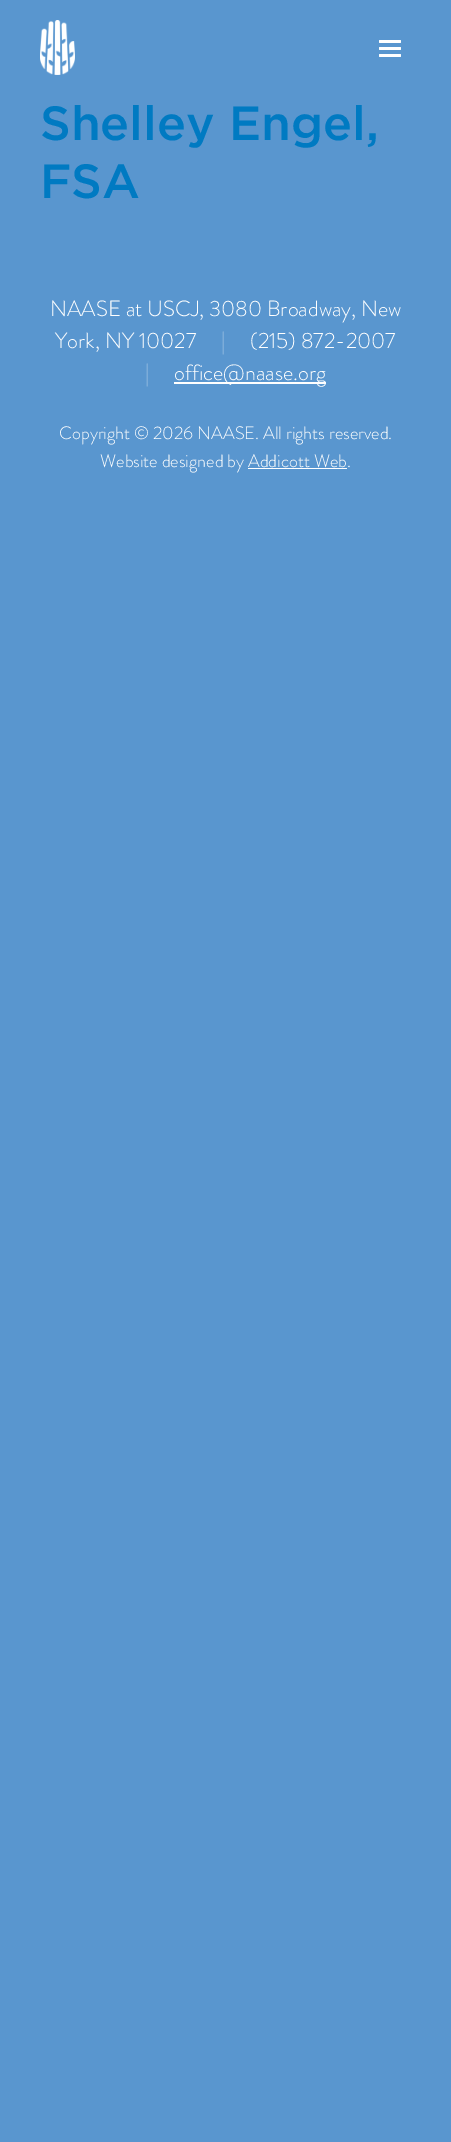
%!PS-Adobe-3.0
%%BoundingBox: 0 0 451 2142
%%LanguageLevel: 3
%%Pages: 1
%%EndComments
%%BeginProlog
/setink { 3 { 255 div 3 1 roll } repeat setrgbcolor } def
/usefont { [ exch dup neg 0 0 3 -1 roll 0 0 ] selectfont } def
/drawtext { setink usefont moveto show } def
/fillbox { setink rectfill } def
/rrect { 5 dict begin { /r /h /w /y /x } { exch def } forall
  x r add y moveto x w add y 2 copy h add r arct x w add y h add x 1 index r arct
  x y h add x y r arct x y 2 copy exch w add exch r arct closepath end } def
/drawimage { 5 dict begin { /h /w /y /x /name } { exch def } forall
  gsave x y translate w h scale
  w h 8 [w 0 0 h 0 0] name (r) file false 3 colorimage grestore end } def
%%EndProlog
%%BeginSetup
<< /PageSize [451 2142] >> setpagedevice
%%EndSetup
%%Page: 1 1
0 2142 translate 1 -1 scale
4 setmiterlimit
0 0 451 2142 89 150 207 fillbox
(assets/img1.rgb) 40 20 35 55 drawimage
255 255 255 setink
379 40 22 3 1 rrect fill
379 47 22 3 1 rrect fill
379 54 22 3 1 rrect fill
(Shelley Engel,) 40 140 /Gotham-Medium 48 0 122 194 drawtext
(FSA) 40 198 /Gotham-Medium 48 0 122 194 drawtext
(NAASE at USCJ, 3080 Broadway, New) 50 316 /BrandonGrotesque-Light 22 255 255 255 drawtext
(York, NY 10027) 55 348 /BrandonGrotesque-Light 22 255 255 255 drawtext
(|) 221 348 /BrandonGrotesque-Light 22 155 192 226 drawtext
(\(215\) 872-2007) 250 348 /BrandonGrotesque-Light 22 255 255 255 drawtext
(|) 145 380 /BrandonGrotesque-Light 22 155 192 226 drawtext
174 382 152 2 255 255 255 fillbox
(office@naase.org) 174 380 /BrandonGrotesque-Light 22 255 255 255 drawtext
(Copyright © 2026 NAASE. All rights reserved.) 59 439 /BrandonGrotesque-Light 18 255 255 255 drawtext
(Website designed by Addicott Web.) 100 467 /BrandonGrotesque-Light 18 255 255 255 drawtext
248 468 99 1 255 255 255 fillbox
showpage
%%EOF
